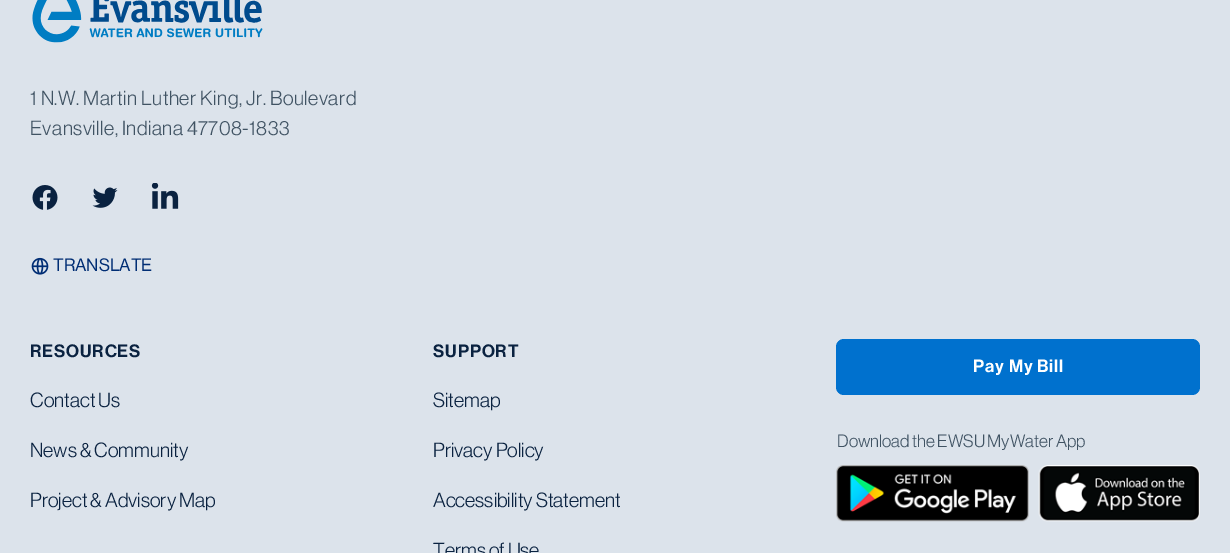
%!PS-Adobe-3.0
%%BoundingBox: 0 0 1230 553
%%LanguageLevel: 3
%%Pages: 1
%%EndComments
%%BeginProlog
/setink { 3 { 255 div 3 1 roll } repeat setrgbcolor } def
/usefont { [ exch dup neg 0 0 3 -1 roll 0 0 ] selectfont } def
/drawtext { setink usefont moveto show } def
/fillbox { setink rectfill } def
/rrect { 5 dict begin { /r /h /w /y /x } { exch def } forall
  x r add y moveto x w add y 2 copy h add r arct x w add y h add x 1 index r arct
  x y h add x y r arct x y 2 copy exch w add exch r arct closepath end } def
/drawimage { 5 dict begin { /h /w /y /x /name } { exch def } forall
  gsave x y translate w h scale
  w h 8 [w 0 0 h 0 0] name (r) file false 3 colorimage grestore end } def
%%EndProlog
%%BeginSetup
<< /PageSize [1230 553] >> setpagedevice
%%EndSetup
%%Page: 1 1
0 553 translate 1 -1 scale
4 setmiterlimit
0 0 1230 553 220 227 235 fillbox
(assets/img1.rgb) 32 0 231 43 drawimage
/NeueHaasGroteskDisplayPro-Regular 20 usefont
64 83 99 setink
30 105 moveto 0.5 0 (1 N.W. Martin Luther King, Jr. Boulevard) ashow
30 135 moveto 0.5 0 (Evansville, Indiana 47708-1833) ashow
(assets/img2.rgb) 32 185 26 25 drawimage
(assets/img3.rgb) 92 187 26 21 drawimage
(assets/img4.rgb) 151 183 28 26 drawimage
(assets/img5.rgb) 31 257 18 18 drawimage
(TRANSLATE) 53 271 /NeueHaasGroteskDisplayPro-Medium 17.5 0 45 116 drawtext
/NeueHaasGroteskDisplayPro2-Medium 17.5 usefont
10 34 64 setink
30 357 moveto 0.9 0 (RESOURCES) ashow
(Contact Us) 30 407 /NeueHaasGroteskDisplayPro-Regular 20 10 34 64 drawtext
(News & Community) 30 457 /NeueHaasGroteskDisplayPro-Regular 20 10 34 64 drawtext
(Project & Advisory Map) 30 507 /NeueHaasGroteskDisplayPro-Regular 20 10 34 64 drawtext
/NeueHaasGroteskDisplayPro2-Medium 17.5 usefont
433 357 moveto 0.9 0 (SUPPORT) ashow
(Sitemap) 433 407 /NeueHaasGroteskDisplayPro-Regular 20 10 34 64 drawtext
(Privacy Policy) 433 457 /NeueHaasGroteskDisplayPro-Regular 20 10 34 64 drawtext
(Accessibility Statement) 433 507 /NeueHaasGroteskDisplayPro-Regular 20 10 34 64 drawtext
(Terms of Use) 433 557 /NeueHaasGroteskDisplayPro-Regular 20 10 34 64 drawtext
0 113 206 setink
836 339 364 56 8 rrect fill
/NeueHaasGroteskDisplayPro2-Medium 17.5 usefont
255 255 255 setink
973 372 moveto 0.9 0 (Pay My Bill) ashow
(Download the EWSU MyWater App) 837 447 /NeueHaasGroteskDisplayPro-Regular 17.5 64 83 99 drawtext
(assets/img6.rgb) 836 465 193 57 drawimage
(assets/img7.rgb) 1038 465 162 57 drawimage
showpage
%%EOF
